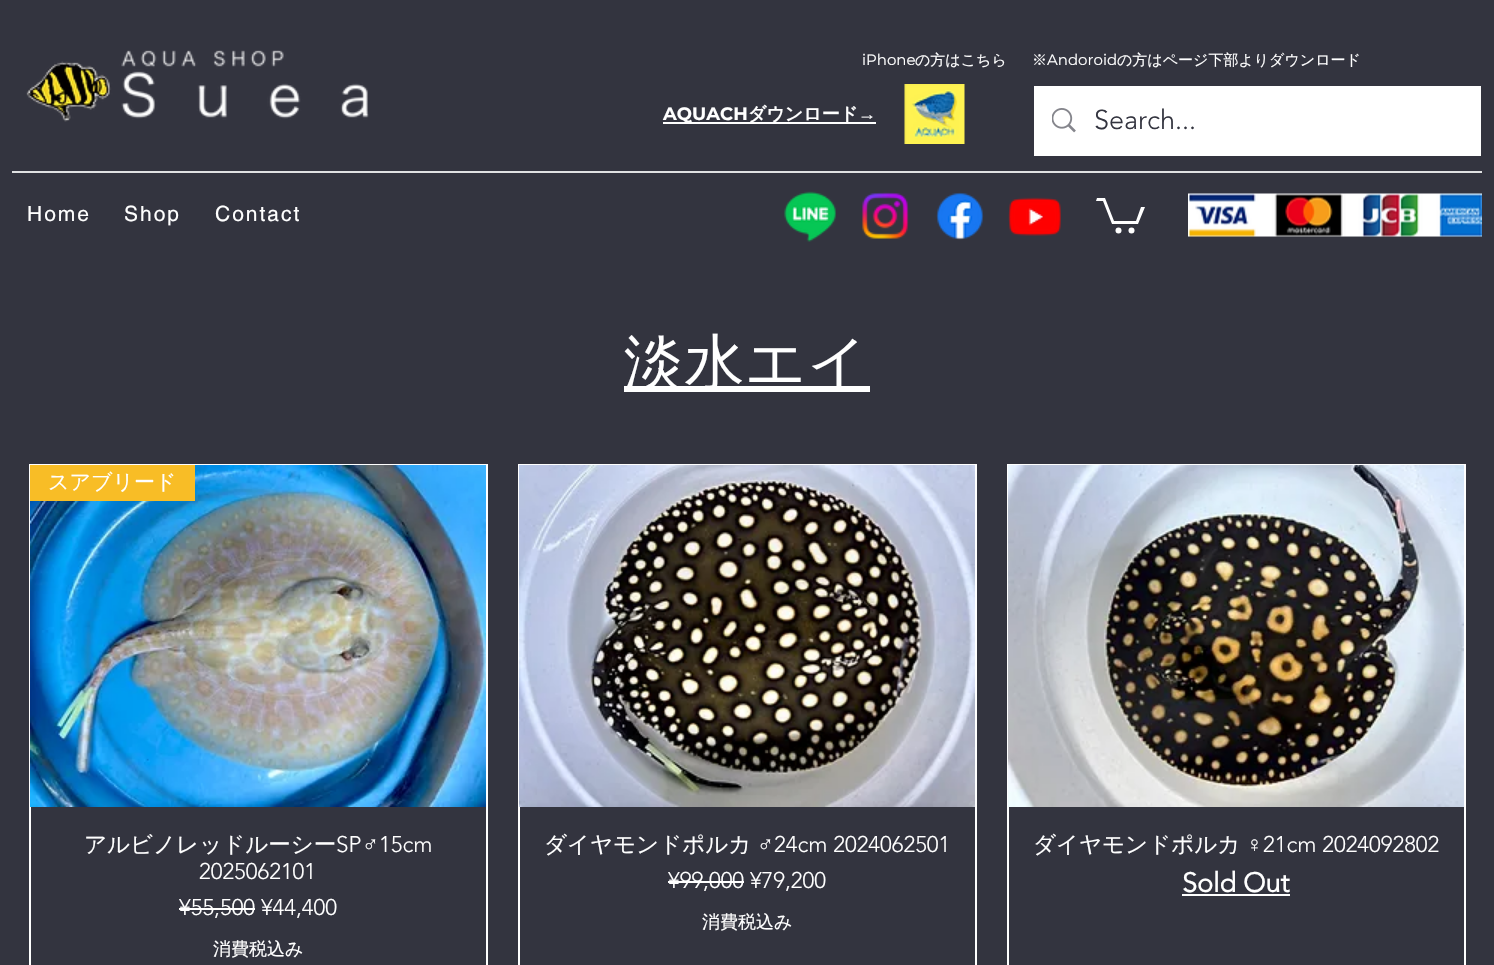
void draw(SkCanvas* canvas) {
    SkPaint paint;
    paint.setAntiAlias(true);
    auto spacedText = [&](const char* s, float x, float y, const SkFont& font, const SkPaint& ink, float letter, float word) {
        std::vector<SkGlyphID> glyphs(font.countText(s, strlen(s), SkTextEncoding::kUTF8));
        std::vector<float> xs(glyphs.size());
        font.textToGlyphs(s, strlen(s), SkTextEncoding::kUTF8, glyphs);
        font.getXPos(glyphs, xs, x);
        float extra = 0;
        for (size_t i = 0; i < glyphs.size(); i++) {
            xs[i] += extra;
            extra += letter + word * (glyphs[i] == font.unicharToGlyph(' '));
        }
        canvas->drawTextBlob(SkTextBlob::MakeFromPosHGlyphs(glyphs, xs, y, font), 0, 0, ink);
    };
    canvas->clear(0xFF33343F);
    canvas->drawImageRect(SkImages::DeferredFromEncodedData(SkData::MakeFromFileName("img1.png")), SkRect::MakeXYWH(26, 50, 343, 72), SkSamplingOptions());
    SkFont font1(fontMgr->matchFamilyStyle("Montserrat", SkFontStyle::Normal()), 15);
    font1.setSubpixel(true);
    paint.setColor(0xFFFFFFFF);
    canvas->drawString("iPhone", 862, 65, font1, paint);
    SkFont font2(fontMgr->matchFamilyStyle("WenQuanYi Zen Hei", SkFontStyle(500, SkFontStyle::kNormal_Width, SkFontStyle::kUpright_Slant)), 15);
    font2.setSubpixel(true);
    canvas->drawString("の方はこちら", 915, 65, font2, paint);
    canvas->drawString("※", 1032, 65, font2, paint);
    canvas->drawString("Andoroid", 1047, 65, font1, paint);
    canvas->drawString("の方はページ下部よりダウンロード", 1117, 65, font2, paint);
    canvas->drawRect(SkRect::MakeXYWH(663, 122, 213, 2), paint);
    SkFont font3(fontMgr->matchFamilyStyle("Montserrat", SkFontStyle::Bold()), 18);
    font3.setSubpixel(true);
    canvas->drawString("AQUACH", 663, 120, font3, paint);
    SkFont font4(fontMgr->matchFamilyStyle("WenQuanYi Zen Hei", SkFontStyle::Bold()), 18);
    font4.setSubpixel(true);
    canvas->drawString("ダウンロード", 748, 120, font4, paint);
    SkFont font5(fontMgr->matchFamilyStyle("Liberation Sans", SkFontStyle::Bold()), 18);
    font5.setSubpixel(true);
    canvas->drawString("→", 858, 120, font5, paint);
    canvas->drawImageRect(SkImages::DeferredFromEncodedData(SkData::MakeFromFileName("img2.png")), SkRect::MakeXYWH(904, 84, 61, 60), SkSamplingOptions());
    canvas->drawRect(SkRect::MakeXYWH(1034, 86, 447, 70), paint);
    canvas->drawImageRect(SkImages::DeferredFromEncodedData(SkData::MakeFromFileName("img3.png")), SkRect::MakeXYWH(1052, 108, 24, 25), SkSamplingOptions());
    SkFont font6(fontMgr->matchFamilyStyle("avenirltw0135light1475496", SkFontStyle(300, SkFontStyle::kNormal_Width, SkFontStyle::kUpright_Slant)), 27);
    font6.setSubpixel(true);
    paint.setColor(0xFF33343F);
    canvas->drawString("Search...", 1094, 129, font6, paint);
    paint.setColor(0xFFE0E1E2);
    canvas->drawRect(SkRect::MakeXYWH(12, 171, 1470, 2), paint);
    SkFont font7(fontMgr->matchFamilyStyle("helvetica", SkFontStyle::Normal()), 21);
    font7.setSubpixel(true);
    paint.setColor(0xFFFFFFFF);
    spacedText("Home", 27, 221, font7, paint, 2, 0);
    spacedText("Shop", 124, 221, font7, paint, 2, 0);
    spacedText("Contact", 215, 221, font7, paint, 2, 0);
    canvas->drawImageRect(SkImages::DeferredFromEncodedData(SkData::MakeFromFileName("img4.png")), SkRect::MakeXYWH(784, 191, 52, 51), SkSamplingOptions());
    canvas->drawImageRect(SkImages::DeferredFromEncodedData(SkData::MakeFromFileName("img5.png")), SkRect::MakeXYWH(862, 192, 47, 47), SkSamplingOptions());
    canvas->drawImageRect(SkImages::DeferredFromEncodedData(SkData::MakeFromFileName("img6.png")), SkRect::MakeXYWH(936, 192, 48, 48), SkSamplingOptions());
    canvas->drawImageRect(SkImages::DeferredFromEncodedData(SkData::MakeFromFileName("img7.png")), SkRect::MakeXYWH(1008, 197, 53, 39), SkSamplingOptions());
    canvas->drawPath(SkPathBuilder().moveTo(1145, 207).lineTo(1138, 224).lineTo(1112, 224).lineTo(1103, 201).lineTo(1096, 201).lineTo(1097, 198).lineTo(1105, 198).lineTo(1114, 221).lineTo(1136, 221).lineTo(1141, 207).detach(), paint);
    canvas->drawCircle(1131.5f, 230.5f, 3, paint);
    canvas->drawCircle(1118.5f, 230.5f, 3, paint);
    canvas->drawImageRect(SkImages::DeferredFromEncodedData(SkData::MakeFromFileName("img8.png")), SkRect::MakeXYWH(1188, 193, 294, 44), SkSamplingOptions());
    canvas->drawRect(SkRect::MakeXYWH(624, 386, 246, 6), paint);
    SkFont font8(fontMgr->matchFamilyStyle("WenQuanYi Zen Hei", SkFontStyle(500, SkFontStyle::kNormal_Width, SkFontStyle::kUpright_Slant)), 60);
    font8.setSubpixel(true);
    spacedText("淡水エイ", 624, 383, font8, paint, 0.5f, 0);
    paint.setStyle(SkPaint::kStroke_Style);
    paint.setStrokeWidth(2);
    canvas->drawRect(SkRect::MakeXYWH(30, 465, 457, 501), paint);
    canvas->drawImageRect(SkImages::DeferredFromEncodedData(SkData::MakeFromFileName("img9.png")), SkRect::MakeXYWH(30, 465, 456, 342), SkSamplingOptions());
    paint.setStyle(SkPaint::kFill_Style);
    paint.setColor(0xFFF8BD26);
    canvas->drawRect(SkRect::MakeXYWH(30, 465, 165, 36), paint);
    SkFont font9(fontMgr->matchFamilyStyle("WenQuanYi Zen Hei", SkFontStyle(500, SkFontStyle::kNormal_Width, SkFontStyle::kUpright_Slant)), 21);
    font9.setSubpixel(true);
    paint.setColor(0xFFFFFFFF);
    canvas->drawString("スアブリード", 48, 489, font9, paint);
    SkFont font10(fontMgr->matchFamilyStyle("WenQuanYi Zen Hei", SkFontStyle(500, SkFontStyle::kNormal_Width, SkFontStyle::kUpright_Slant)), 22.5f);
    font10.setSubpixel(true);
    canvas->drawString("アルビノレッドルーシー", 84, 852, font10, paint);
    SkFont font11(fontMgr->matchFamilyStyle("avenirltw0135light1475496", SkFontStyle(300, SkFontStyle::kNormal_Width, SkFontStyle::kUpright_Slant)), 22.5f);
    font11.setSubpixel(true);
    canvas->drawString("SP", 336, 852, font11, paint);
    SkFont font12(fontMgr->matchFamilyStyle("Liberation Sans", SkFontStyle::Normal()), 22.5f);
    font12.setSubpixel(true);
    canvas->drawString("♂", 362, 852, font12, paint);
    canvas->drawString("15cm", 379, 852, font11, paint);
    canvas->drawString("2025062101", 199, 879, font11, paint);
    canvas->drawString("¥55,500 ¥44,400", 179, 915, font11, paint);
    canvas->drawRect(SkRect::MakeXYWH(179, 908, 76, 2), paint);
    SkFont font13(fontMgr->matchFamilyStyle("WenQuanYi Zen Hei", SkFontStyle(500, SkFontStyle::kNormal_Width, SkFontStyle::kUpright_Slant)), 18);
    font13.setSubpixel(true);
    canvas->drawString("消費税込み", 213, 955, font13, paint);
    paint.setStyle(SkPaint::kStroke_Style);
    canvas->drawRect(SkRect::MakeXYWH(519, 465, 457, 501), paint);
    canvas->drawImageRect(SkImages::DeferredFromEncodedData(SkData::MakeFromFileName("img10.png")), SkRect::MakeXYWH(519, 465, 456, 342), SkSamplingOptions());
    paint.setStyle(SkPaint::kFill_Style);
    canvas->drawString("ダイヤモンドポルカ", 544, 852, font10, paint);
    canvas->drawString("♂", 757, 852, font12, paint);
    canvas->drawString("24cm 2024062501", 774, 852, font11, paint);
    canvas->drawString("¥99,000 ¥79,200", 668, 888, font11, paint);
    canvas->drawRect(SkRect::MakeXYWH(668, 881, 76, 2), paint);
    canvas->drawString("消費税込み", 702, 928, font13, paint);
    paint.setStyle(SkPaint::kStroke_Style);
    canvas->drawRect(SkRect::MakeXYWH(1008, 465, 457, 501), paint);
    canvas->drawImageRect(SkImages::DeferredFromEncodedData(SkData::MakeFromFileName("img11.png")), SkRect::MakeXYWH(1008, 465, 456, 342), SkSamplingOptions());
    paint.setStyle(SkPaint::kFill_Style);
    canvas->drawString("ダイヤモンドポルカ", 1033, 852, font10, paint);
    canvas->drawString("♀", 1246, 852, font12, paint);
    canvas->drawString("21cm 2024092802", 1263, 852, font11, paint);
    SkFont font14(fontMgr->matchFamilyStyle("avenirltw0135light1475496", SkFontStyle::Bold()), 27);
    font14.setSubpixel(true);
    canvas->drawString("Sold Out", 1182, 892, font14, paint);
    canvas->drawRect(SkRect::MakeXYWH(1182, 894, 108, 2), paint);
}
